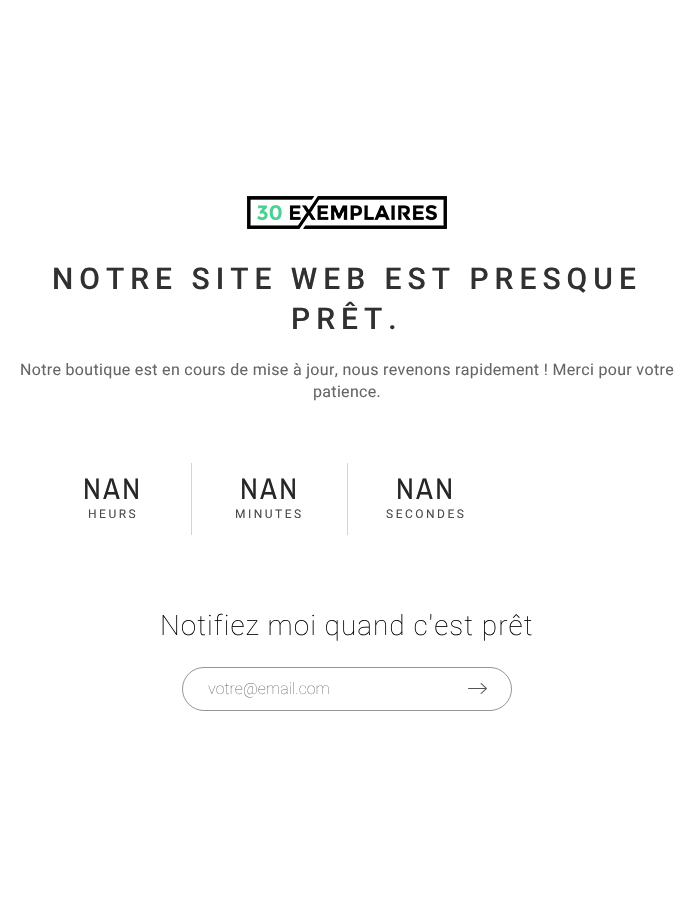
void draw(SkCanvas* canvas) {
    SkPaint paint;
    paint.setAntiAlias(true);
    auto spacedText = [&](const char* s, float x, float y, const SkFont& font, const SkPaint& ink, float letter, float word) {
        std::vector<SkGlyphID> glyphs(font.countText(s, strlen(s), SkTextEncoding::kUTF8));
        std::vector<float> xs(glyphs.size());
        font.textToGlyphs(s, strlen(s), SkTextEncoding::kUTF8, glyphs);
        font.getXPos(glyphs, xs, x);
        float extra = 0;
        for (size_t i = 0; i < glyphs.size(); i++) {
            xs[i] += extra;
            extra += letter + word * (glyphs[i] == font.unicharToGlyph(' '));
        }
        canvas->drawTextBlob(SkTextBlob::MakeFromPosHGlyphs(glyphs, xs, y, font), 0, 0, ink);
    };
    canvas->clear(0xFFFFFFFF);
    canvas->drawImageRect(SkImages::DeferredFromEncodedData(SkData::MakeFromFileName("img1.png")), SkRect::MakeXYWH(247, 196, 200, 33), SkSamplingOptions());
    SkFont font1(fontMgr->matchFamilyStyle("Roboto", SkFontStyle(500, SkFontStyle::kNormal_Width, SkFontStyle::kUpright_Slant)), 30);
    font1.setSubpixel(true);
    paint.setColor(0xFF313131);
    spacedText("NOTRE SITE WEB EST PRESQUE", 52, 289, font1, paint, 6, 0);
    spacedText("PRÊT.", 291, 329, font1, paint, 6, 0);
    SkFont font2(fontMgr->matchFamilyStyle("Roboto", SkFontStyle::Normal()), 16);
    font2.setSubpixel(true);
    paint.setColor(0xFF666666);
    spacedText("Notre boutique est en cours de mise à jour, nous revenons rapidement ! Merci pour votre", 20, 375, font2, paint, 0.32f, 0);
    spacedText("patience.", 313, 397, font2, paint, 0.32f, 0);
    SkFont font3(fontMgr->matchFamilyStyle("Archivo Narrow", SkFontStyle::Normal()), 30);
    font3.setSubpixel(true);
    paint.setColor(0xFF272727);
    spacedText("NAN", 83, 499, font3, paint, 2.5f, 0);
    SkFont font4(fontMgr->matchFamilyStyle("Roboto", SkFontStyle::Normal()), 12);
    font4.setSubpixel(true);
    paint.setColor(0xFF4C4C4C);
    spacedText("HEURS", 88, 518, font4, paint, 2.5f, 0);
    paint.setColor(0xFFD4D4D4);
    canvas->drawRect(SkRect::MakeXYWH(191, 463, 1, 72), paint);
    paint.setColor(0xFF272727);
    spacedText("NAN", 240, 499, font3, paint, 2.5f, 0);
    paint.setColor(0xFF4C4C4C);
    spacedText("MINUTES", 235, 518, font4, paint, 2.5f, 0);
    paint.setColor(0xFFD4D4D4);
    canvas->drawRect(SkRect::MakeXYWH(347, 463, 1, 72), paint);
    paint.setColor(0xFF272727);
    spacedText("NAN", 396, 499, font3, paint, 2.5f, 0);
    paint.setColor(0xFF4C4C4C);
    spacedText("SECONDES", 386, 518, font4, paint, 2.5f, 0);
    SkFont font5(fontMgr->matchFamilyStyle("Roboto", SkFontStyle(100, SkFontStyle::kNormal_Width, SkFontStyle::kUpright_Slant)), 28);
    font5.setSubpixel(true);
    paint.setColor(0xFF000000);
    spacedText("Notifiez moi quand c'est prêt", 160, 635, font5, paint, 1, 0);
    paint.setStyle(SkPaint::kStroke_Style);
    paint.setStrokeWidth(1);
    paint.setColor(0xFF959595);
    canvas->drawRoundRect(SkRect::MakeXYWH(182.5f, 667.5f, 329, 43), 21.5f, 21.5f, paint);
    SkFont font6(fontMgr->matchFamilyStyle("Roboto", SkFontStyle(100, SkFontStyle::kNormal_Width, SkFontStyle::kUpright_Slant)), 16);
    font6.setSubpixel(true);
    paint.setStyle(SkPaint::kFill_Style);
    paint.setColor(0xFF757575);
    canvas->drawString("votre@email.com", 208, 694, font6, paint);
    canvas->drawImageRect(SkImages::DeferredFromEncodedData(SkData::MakeFromFileName("img2.png")), SkRect::MakeXYWH(468, 683, 19, 11), SkSamplingOptions());
}
